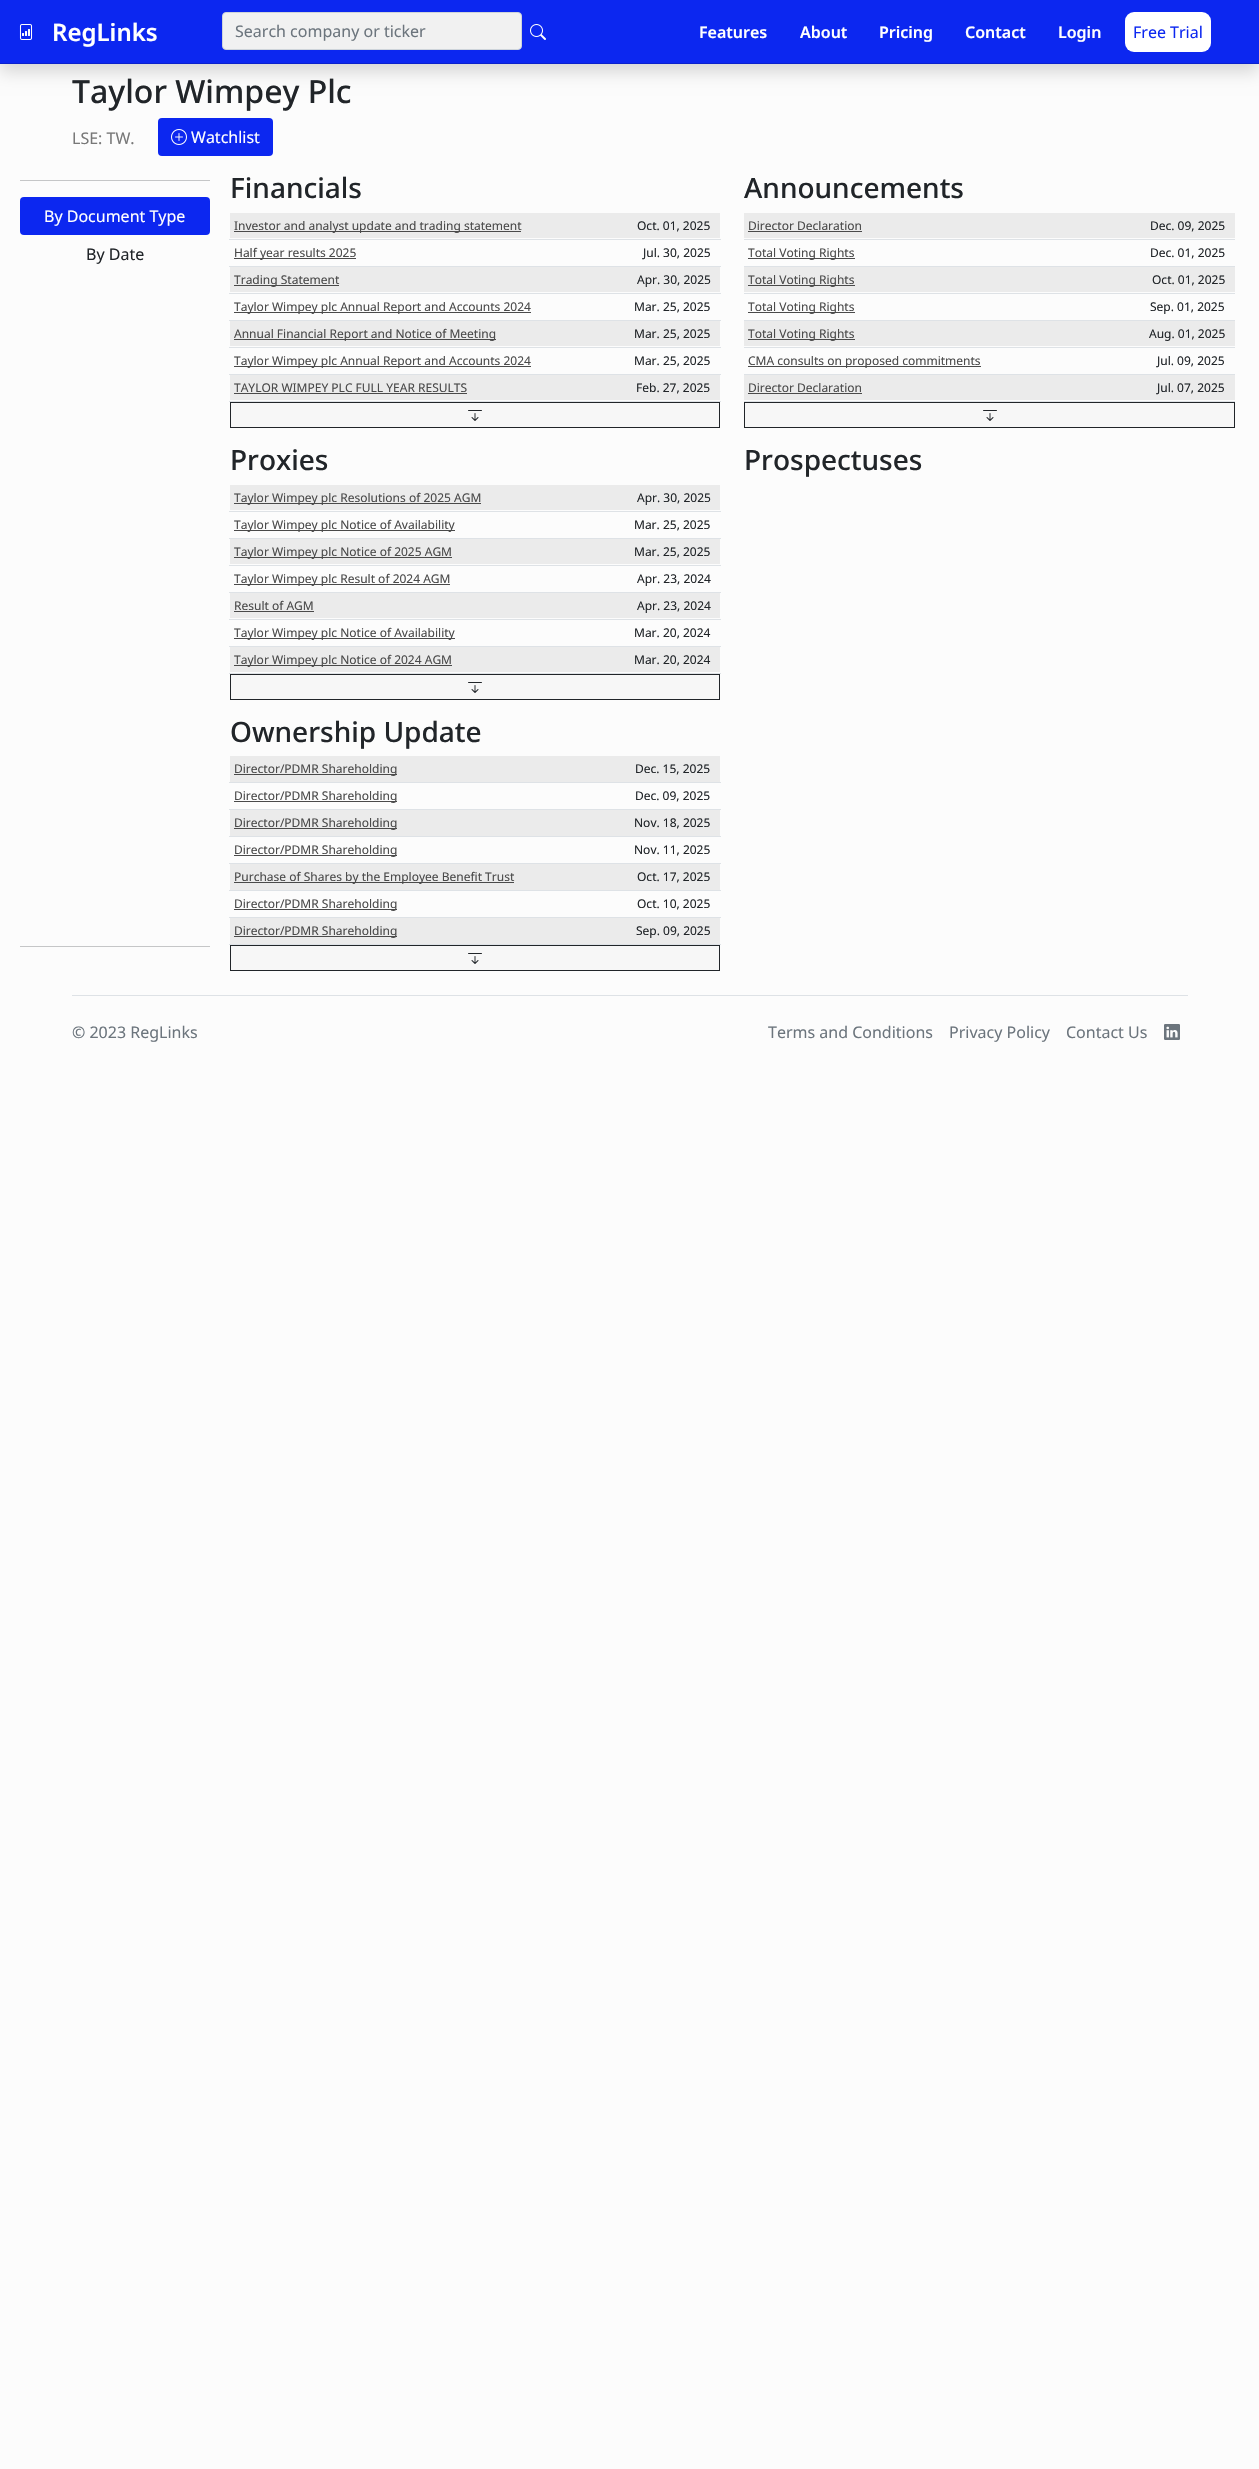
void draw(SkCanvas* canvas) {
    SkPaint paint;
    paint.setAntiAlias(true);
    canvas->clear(0xFFFCFCFC);
    paint.setColor(0x26000000);
    paint.setMaskFilter(SkMaskFilter::MakeBlur(kNormal_SkBlurStyle, 8));
    canvas->drawRect(SkRect::MakeXYWH(0, 8, 1259, 64), paint);
    paint.setMaskFilter(nullptr);
    paint.setColor(0xFF0C27F0);
    canvas->drawRect(SkRect::MakeXYWH(0, 0, 1259, 63), paint);
    paint.setColor(0xFF0A21CC);
    canvas->drawRect(SkRect::MakeXYWH(0, 63, 1259, 1), paint);
    canvas->drawImageRect(SkImages::DeferredFromEncodedData(SkData::MakeFromFileName("img1.png")), SkRect::MakeXYWH(19, 24, 14, 16), SkSamplingOptions());
    SkFont font1(fontMgr->matchFamilyStyle("Noto Sans", SkFontStyle(600, SkFontStyle::kNormal_Width, SkFontStyle::kUpright_Slant)), 24);
    font1.setSubpixel(true);
    paint.setColor(0xFFFFFFFF);
    canvas->drawString("RegLinks", 52, 41, font1, paint);
    paint.setColor(0xFFF1F1F1);
    canvas->drawRoundRect(SkRect::MakeXYWH(222.5f, 12.5f, 299, 37), 3.5f, 3.5f, paint);
    paint.setStyle(SkPaint::kStroke_Style);
    paint.setStrokeWidth(1);
    paint.setColor(0xFFCED4DA);
    canvas->drawRoundRect(SkRect::MakeXYWH(222.5f, 12.5f, 299, 37), 3.5f, 3.5f, paint);
    SkFont font2(fontMgr->matchFamilyStyle("Noto Sans", SkFontStyle::Normal()), 16);
    font2.setSubpixel(true);
    paint.setStyle(SkPaint::kFill_Style);
    paint.setColor(0xFF6C757D);
    canvas->drawString("Search company or ticker", 235, 37, font2, paint);
    canvas->drawImageRect(SkImages::DeferredFromEncodedData(SkData::MakeFromFileName("img2.png")), SkRect::MakeXYWH(530, 24, 16, 16), SkSamplingOptions());
    SkFont font3(fontMgr->matchFamilyStyle("Noto Sans", SkFontStyle(600, SkFontStyle::kNormal_Width, SkFontStyle::kUpright_Slant)), 16);
    font3.setSubpixel(true);
    paint.setColor(0xFFFFFFFF);
    canvas->drawString("Features", 699, 38, font3, paint);
    canvas->drawString("About", 800, 38, font3, paint);
    canvas->drawString("Pricing", 879, 38, font3, paint);
    canvas->drawString("Contact", 965, 38, font3, paint);
    canvas->drawString("Login", 1058, 38, font3, paint);
    canvas->drawRoundRect(SkRect::MakeXYWH(1125, 12, 86, 40), 9, 9, paint);
    paint.setColor(0xFF0C27F0);
    canvas->drawString("Free Trial", 1133, 38, font2, paint);
    SkFont font4(fontMgr->matchFamilyStyle("Noto Sans", SkFontStyle(500, SkFontStyle::kNormal_Width, SkFontStyle::kUpright_Slant)), 32);
    font4.setSubpixel(true);
    paint.setColor(0xFF212529);
    canvas->drawString("Taylor Wimpey Plc", 72, 103, font4, paint);
    paint.setColor(0xFF787878);
    canvas->drawString("LSE: TW.", 72, 144, font2, paint);
    paint.setColor(0xFF0C27F0);
    canvas->drawRoundRect(SkRect::MakeXYWH(158, 118, 115, 38), 4, 4, paint);
    canvas->drawImageRect(SkImages::DeferredFromEncodedData(SkData::MakeFromFileName("img3.png")), SkRect::MakeXYWH(171, 129, 16, 16), SkSamplingOptions());
    paint.setColor(0xFFFFFFFF);
    canvas->drawString("Watchlist", 191, 143, font2, paint);
    paint.setColor(0xFFC5C6C7);
    canvas->drawRect(SkRect::MakeXYWH(20, 180, 190, 1), paint);
    paint.setColor(0xFF0C27F0);
    canvas->drawRoundRect(SkRect::MakeXYWH(20, 197, 190, 38), 4, 4, paint);
    paint.setColor(0xFFFFFFFF);
    canvas->drawString("By Document Type", 44, 222, font2, paint);
    paint.setColor(0xFF212529);
    canvas->drawString("By Date", 86, 260, font2, paint);
    paint.setColor(0xFFC5C6C7);
    canvas->drawRect(SkRect::MakeXYWH(20, 946, 190, 1), paint);
    SkFont font5(fontMgr->matchFamilyStyle("Noto Sans", SkFontStyle(500, SkFontStyle::kNormal_Width, SkFontStyle::kUpright_Slant)), 28);
    font5.setSubpixel(true);
    paint.setColor(0xFF212529);
    canvas->drawString("Financials", 230, 198, font5, paint);
    paint.setColor(0xFFEBEBEB);
    canvas->drawRect(SkRect::MakeXYWH(230, 213, 490, 25), paint);
    paint.setColor(0xFF4A4A4A);
    canvas->drawRect(SkRect::MakeXYWH(234, 231, 287, 1), paint);
    SkFont font6(fontMgr->matchFamilyStyle("Noto Sans", SkFontStyle::Normal()), 12);
    font6.setSubpixel(true);
    canvas->drawString("Investor and analyst update and trading statement", 234, 230, font6, paint);
    paint.setColor(0xFFDEE2E6);
    canvas->drawRect(SkRect::MakeXYWH(229, 239, 492, 1), paint);
    paint.setColor(0xFF212529);
    canvas->drawString("Oct. 01, 2025", 637, 230, font6, paint);
    paint.setColor(0xFF4A4A4A);
    canvas->drawRect(SkRect::MakeXYWH(234, 258, 122, 1), paint);
    canvas->drawString("Half year results 2025", 234, 257, font6, paint);
    paint.setColor(0xFFDEE2E6);
    canvas->drawRect(SkRect::MakeXYWH(229, 266, 492, 1), paint);
    paint.setColor(0xFF212529);
    canvas->drawString("Jul. 30, 2025", 643, 257, font6, paint);
    paint.setColor(0xFFEBEBEB);
    canvas->drawRect(SkRect::MakeXYWH(230, 267, 490, 25), paint);
    paint.setColor(0xFF4A4A4A);
    canvas->drawRect(SkRect::MakeXYWH(234, 285, 105, 1), paint);
    canvas->drawString("Trading Statement", 234, 284, font6, paint);
    paint.setColor(0xFFDEE2E6);
    canvas->drawRect(SkRect::MakeXYWH(229, 293, 492, 1), paint);
    paint.setColor(0xFF212529);
    canvas->drawString("Apr. 30, 2025", 637, 284, font6, paint);
    paint.setColor(0xFF4A4A4A);
    canvas->drawRect(SkRect::MakeXYWH(234, 312, 297, 1), paint);
    canvas->drawString("Taylor Wimpey plc Annual Report and Accounts 2024", 234, 311, font6, paint);
    paint.setColor(0xFFDEE2E6);
    canvas->drawRect(SkRect::MakeXYWH(229, 320, 492, 1), paint);
    paint.setColor(0xFF212529);
    canvas->drawString("Mar. 25, 2025", 634, 311, font6, paint);
    paint.setColor(0xFFEBEBEB);
    canvas->drawRect(SkRect::MakeXYWH(230, 321, 490, 25), paint);
    paint.setColor(0xFF4A4A4A);
    canvas->drawRect(SkRect::MakeXYWH(234, 339, 262, 1), paint);
    canvas->drawString("Annual Financial Report and Notice of Meeting", 234, 338, font6, paint);
    paint.setColor(0xFFDEE2E6);
    canvas->drawRect(SkRect::MakeXYWH(229, 347, 492, 1), paint);
    paint.setColor(0xFF212529);
    canvas->drawString("Mar. 25, 2025", 634, 338, font6, paint);
    paint.setColor(0xFF4A4A4A);
    canvas->drawRect(SkRect::MakeXYWH(234, 366, 297, 1), paint);
    canvas->drawString("Taylor Wimpey plc Annual Report and Accounts 2024", 234, 365, font6, paint);
    paint.setColor(0xFFDEE2E6);
    canvas->drawRect(SkRect::MakeXYWH(229, 374, 492, 1), paint);
    paint.setColor(0xFF212529);
    canvas->drawString("Mar. 25, 2025", 634, 365, font6, paint);
    paint.setColor(0xFFEBEBEB);
    canvas->drawRect(SkRect::MakeXYWH(230, 375, 490, 25), paint);
    paint.setColor(0xFF4A4A4A);
    canvas->drawString("TAYLOR WIMPEY PLC FULL YEAR RESULTS", 234, 392, font6, paint);
    canvas->drawRect(SkRect::MakeXYWH(234, 393, 233, 1), paint);
    paint.setColor(0xFFDEE2E6);
    canvas->drawRect(SkRect::MakeXYWH(229, 401, 492, 1), paint);
    paint.setColor(0xFF212529);
    canvas->drawString("Feb. 27, 2025", 636, 392, font6, paint);
    paint.setColor(0xFFF7F7F7);
    canvas->drawRect(SkRect::MakeXYWH(230.5f, 402.5f, 489, 25), paint);
    paint.setStyle(SkPaint::kStroke_Style);
    paint.setColor(0xFF212529);
    canvas->drawRect(SkRect::MakeXYWH(230.5f, 402.5f, 489, 25), paint);
    canvas->drawImageRect(SkImages::DeferredFromEncodedData(SkData::MakeFromFileName("img4.png")), SkRect::MakeXYWH(468, 410, 14, 11), SkSamplingOptions());
    paint.setStyle(SkPaint::kFill_Style);
    canvas->drawString("Proxies", 230, 470, font5, paint);
    paint.setColor(0xFFEBEBEB);
    canvas->drawRect(SkRect::MakeXYWH(230, 485, 490, 25), paint);
    paint.setColor(0xFF4A4A4A);
    canvas->drawRect(SkRect::MakeXYWH(234, 503, 247, 1), paint);
    canvas->drawString("Taylor Wimpey plc Resolutions of 2025 AGM", 234, 502, font6, paint);
    paint.setColor(0xFFDEE2E6);
    canvas->drawRect(SkRect::MakeXYWH(229, 511, 492, 1), paint);
    paint.setColor(0xFF212529);
    canvas->drawString("Apr. 30, 2025", 637, 502, font6, paint);
    paint.setColor(0xFF4A4A4A);
    canvas->drawRect(SkRect::MakeXYWH(234, 530, 221, 1), paint);
    canvas->drawString("Taylor Wimpey plc Notice of Availability", 234, 529, font6, paint);
    paint.setColor(0xFFDEE2E6);
    canvas->drawRect(SkRect::MakeXYWH(229, 538, 492, 1), paint);
    paint.setColor(0xFF212529);
    canvas->drawString("Mar. 25, 2025", 634, 529, font6, paint);
    paint.setColor(0xFFEBEBEB);
    canvas->drawRect(SkRect::MakeXYWH(230, 539, 490, 25), paint);
    paint.setColor(0xFF4A4A4A);
    canvas->drawRect(SkRect::MakeXYWH(234, 557, 218, 1), paint);
    canvas->drawString("Taylor Wimpey plc Notice of 2025 AGM", 234, 556, font6, paint);
    paint.setColor(0xFFDEE2E6);
    canvas->drawRect(SkRect::MakeXYWH(229, 565, 492, 1), paint);
    paint.setColor(0xFF212529);
    canvas->drawString("Mar. 25, 2025", 634, 556, font6, paint);
    paint.setColor(0xFF4A4A4A);
    canvas->drawRect(SkRect::MakeXYWH(234, 584, 216, 1), paint);
    canvas->drawString("Taylor Wimpey plc Result of 2024 AGM", 234, 583, font6, paint);
    paint.setColor(0xFFDEE2E6);
    canvas->drawRect(SkRect::MakeXYWH(229, 592, 492, 1), paint);
    paint.setColor(0xFF212529);
    canvas->drawString("Apr. 23, 2024", 637, 583, font6, paint);
    paint.setColor(0xFFEBEBEB);
    canvas->drawRect(SkRect::MakeXYWH(230, 593, 490, 25), paint);
    paint.setColor(0xFF4A4A4A);
    canvas->drawString("Result of AGM", 234, 610, font6, paint);
    canvas->drawRect(SkRect::MakeXYWH(234, 611, 80, 1), paint);
    paint.setColor(0xFFDEE2E6);
    canvas->drawRect(SkRect::MakeXYWH(229, 619, 492, 1), paint);
    paint.setColor(0xFF212529);
    canvas->drawString("Apr. 23, 2024", 637, 610, font6, paint);
    paint.setColor(0xFF4A4A4A);
    canvas->drawRect(SkRect::MakeXYWH(234, 638, 221, 1), paint);
    canvas->drawString("Taylor Wimpey plc Notice of Availability", 234, 637, font6, paint);
    paint.setColor(0xFFDEE2E6);
    canvas->drawRect(SkRect::MakeXYWH(229, 646, 492, 1), paint);
    paint.setColor(0xFF212529);
    canvas->drawString("Mar. 20, 2024", 634, 637, font6, paint);
    paint.setColor(0xFFEBEBEB);
    canvas->drawRect(SkRect::MakeXYWH(230, 647, 490, 25), paint);
    paint.setColor(0xFF4A4A4A);
    canvas->drawRect(SkRect::MakeXYWH(234, 665, 218, 1), paint);
    canvas->drawString("Taylor Wimpey plc Notice of 2024 AGM", 234, 664, font6, paint);
    paint.setColor(0xFFDEE2E6);
    canvas->drawRect(SkRect::MakeXYWH(229, 673, 492, 1), paint);
    paint.setColor(0xFF212529);
    canvas->drawString("Mar. 20, 2024", 634, 664, font6, paint);
    paint.setColor(0xFFF7F7F7);
    canvas->drawRect(SkRect::MakeXYWH(230.5f, 674.5f, 489, 25), paint);
    paint.setStyle(SkPaint::kStroke_Style);
    paint.setColor(0xFF212529);
    canvas->drawRect(SkRect::MakeXYWH(230.5f, 674.5f, 489, 25), paint);
    canvas->drawImageRect(SkImages::DeferredFromEncodedData(SkData::MakeFromFileName("img4.png")), SkRect::MakeXYWH(468, 682, 14, 11), SkSamplingOptions());
    paint.setStyle(SkPaint::kFill_Style);
    canvas->drawString("Ownership Update", 230, 742, font5, paint);
    paint.setColor(0xFFEBEBEB);
    canvas->drawRect(SkRect::MakeXYWH(230, 756, 490, 26), paint);
    paint.setColor(0xFF4A4A4A);
    canvas->drawRect(SkRect::MakeXYWH(234, 774, 163, 1), paint);
    canvas->drawString("Director/PDMR Shareholding", 234, 773, font6, paint);
    paint.setColor(0xFFDEE2E6);
    canvas->drawRect(SkRect::MakeXYWH(229, 782, 492, 1), paint);
    paint.setColor(0xFF212529);
    canvas->drawString("Dec. 15, 2025", 635, 773, font6, paint);
    paint.setColor(0xFF4A4A4A);
    canvas->drawRect(SkRect::MakeXYWH(234, 801, 163, 1), paint);
    canvas->drawString("Director/PDMR Shareholding", 234, 800, font6, paint);
    paint.setColor(0xFFDEE2E6);
    canvas->drawRect(SkRect::MakeXYWH(229, 809, 492, 1), paint);
    paint.setColor(0xFF212529);
    canvas->drawString("Dec. 09, 2025", 635, 800, font6, paint);
    paint.setColor(0xFFEBEBEB);
    canvas->drawRect(SkRect::MakeXYWH(230, 810, 490, 26), paint);
    paint.setColor(0xFF4A4A4A);
    canvas->drawRect(SkRect::MakeXYWH(234, 828, 163, 1), paint);
    canvas->drawString("Director/PDMR Shareholding", 234, 827, font6, paint);
    paint.setColor(0xFFDEE2E6);
    canvas->drawRect(SkRect::MakeXYWH(229, 836, 492, 1), paint);
    paint.setColor(0xFF212529);
    canvas->drawString("Nov. 18, 2025", 634, 827, font6, paint);
    paint.setColor(0xFF4A4A4A);
    canvas->drawRect(SkRect::MakeXYWH(234, 855, 163, 1), paint);
    canvas->drawString("Director/PDMR Shareholding", 234, 854, font6, paint);
    paint.setColor(0xFFDEE2E6);
    canvas->drawRect(SkRect::MakeXYWH(229, 863, 492, 1), paint);
    paint.setColor(0xFF212529);
    canvas->drawString("Nov. 11, 2025", 634, 854, font6, paint);
    paint.setColor(0xFFEBEBEB);
    canvas->drawRect(SkRect::MakeXYWH(230, 864, 490, 26), paint);
    paint.setColor(0xFF4A4A4A);
    canvas->drawRect(SkRect::MakeXYWH(234, 882, 280, 1), paint);
    canvas->drawString("Purchase of Shares by the Employee Benefit Trust", 234, 881, font6, paint);
    paint.setColor(0xFFDEE2E6);
    canvas->drawRect(SkRect::MakeXYWH(229, 890, 492, 1), paint);
    paint.setColor(0xFF212529);
    canvas->drawString("Oct. 17, 2025", 637, 881, font6, paint);
    paint.setColor(0xFF4A4A4A);
    canvas->drawRect(SkRect::MakeXYWH(234, 909, 163, 1), paint);
    canvas->drawString("Director/PDMR Shareholding", 234, 908, font6, paint);
    paint.setColor(0xFFDEE2E6);
    canvas->drawRect(SkRect::MakeXYWH(229, 917, 492, 1), paint);
    paint.setColor(0xFF212529);
    canvas->drawString("Oct. 10, 2025", 637, 908, font6, paint);
    paint.setColor(0xFFEBEBEB);
    canvas->drawRect(SkRect::MakeXYWH(230, 918, 490, 26), paint);
    paint.setColor(0xFF4A4A4A);
    canvas->drawRect(SkRect::MakeXYWH(234, 936, 163, 1), paint);
    canvas->drawString("Director/PDMR Shareholding", 234, 935, font6, paint);
    paint.setColor(0xFFDEE2E6);
    canvas->drawRect(SkRect::MakeXYWH(229, 944, 492, 1), paint);
    paint.setColor(0xFF212529);
    canvas->drawString("Sep. 09, 2025", 636, 935, font6, paint);
    paint.setColor(0xFFF7F7F7);
    canvas->drawRect(SkRect::MakeXYWH(230.5f, 945.5f, 489, 25), paint);
    paint.setStyle(SkPaint::kStroke_Style);
    paint.setColor(0xFF212529);
    canvas->drawRect(SkRect::MakeXYWH(230.5f, 945.5f, 489, 25), paint);
    canvas->drawImageRect(SkImages::DeferredFromEncodedData(SkData::MakeFromFileName("img4.png")), SkRect::MakeXYWH(468, 953, 14, 11), SkSamplingOptions());
    paint.setStyle(SkPaint::kFill_Style);
    canvas->drawString("Announcements", 744, 198, font5, paint);
    paint.setColor(0xFFEBEBEB);
    canvas->drawRect(SkRect::MakeXYWH(744, 213, 491, 25), paint);
    paint.setColor(0xFF4A4A4A);
    canvas->drawString("Director Declaration", 748, 230, font6, paint);
    canvas->drawRect(SkRect::MakeXYWH(748, 231, 114, 1), paint);
    paint.setColor(0xFFDEE2E6);
    canvas->drawRect(SkRect::MakeXYWH(744, 239, 491, 1), paint);
    paint.setColor(0xFF212529);
    canvas->drawString("Dec. 09, 2025", 1150, 230, font6, paint);
    paint.setColor(0xFF4A4A4A);
    canvas->drawRect(SkRect::MakeXYWH(748, 258, 107, 1), paint);
    canvas->drawString("Total Voting Rights", 748, 257, font6, paint);
    paint.setColor(0xFFDEE2E6);
    canvas->drawRect(SkRect::MakeXYWH(744, 266, 491, 1), paint);
    paint.setColor(0xFF212529);
    canvas->drawString("Dec. 01, 2025", 1150, 257, font6, paint);
    paint.setColor(0xFFEBEBEB);
    canvas->drawRect(SkRect::MakeXYWH(744, 267, 491, 25), paint);
    paint.setColor(0xFF4A4A4A);
    canvas->drawRect(SkRect::MakeXYWH(748, 285, 107, 1), paint);
    canvas->drawString("Total Voting Rights", 748, 284, font6, paint);
    paint.setColor(0xFFDEE2E6);
    canvas->drawRect(SkRect::MakeXYWH(744, 293, 491, 1), paint);
    paint.setColor(0xFF212529);
    canvas->drawString("Oct. 01, 2025", 1152, 284, font6, paint);
    paint.setColor(0xFF4A4A4A);
    canvas->drawRect(SkRect::MakeXYWH(748, 312, 107, 1), paint);
    canvas->drawString("Total Voting Rights", 748, 311, font6, paint);
    paint.setColor(0xFFDEE2E6);
    canvas->drawRect(SkRect::MakeXYWH(744, 320, 491, 1), paint);
    paint.setColor(0xFF212529);
    canvas->drawString("Sep. 01, 2025", 1150, 311, font6, paint);
    paint.setColor(0xFFEBEBEB);
    canvas->drawRect(SkRect::MakeXYWH(744, 321, 491, 25), paint);
    paint.setColor(0xFF4A4A4A);
    canvas->drawRect(SkRect::MakeXYWH(748, 339, 107, 1), paint);
    canvas->drawString("Total Voting Rights", 748, 338, font6, paint);
    paint.setColor(0xFFDEE2E6);
    canvas->drawRect(SkRect::MakeXYWH(744, 347, 491, 1), paint);
    paint.setColor(0xFF212529);
    canvas->drawString("Aug. 01, 2025", 1149, 338, font6, paint);
    paint.setColor(0xFF4A4A4A);
    canvas->drawRect(SkRect::MakeXYWH(748, 366, 233, 1), paint);
    canvas->drawString("CMA consults on proposed commitments", 748, 365, font6, paint);
    paint.setColor(0xFFDEE2E6);
    canvas->drawRect(SkRect::MakeXYWH(744, 374, 491, 1), paint);
    paint.setColor(0xFF212529);
    canvas->drawString("Jul. 09, 2025", 1157, 365, font6, paint);
    paint.setColor(0xFFEBEBEB);
    canvas->drawRect(SkRect::MakeXYWH(744, 375, 491, 25), paint);
    paint.setColor(0xFF4A4A4A);
    canvas->drawString("Director Declaration", 748, 392, font6, paint);
    canvas->drawRect(SkRect::MakeXYWH(748, 393, 114, 1), paint);
    paint.setColor(0xFFDEE2E6);
    canvas->drawRect(SkRect::MakeXYWH(744, 401, 491, 1), paint);
    paint.setColor(0xFF212529);
    canvas->drawString("Jul. 07, 2025", 1157, 392, font6, paint);
    paint.setColor(0xFFF7F7F7);
    canvas->drawRect(SkRect::MakeXYWH(744.5f, 402.5f, 490, 25), paint);
    paint.setStyle(SkPaint::kStroke_Style);
    paint.setColor(0xFF212529);
    canvas->drawRect(SkRect::MakeXYWH(744.5f, 402.5f, 490, 25), paint);
    canvas->drawImageRect(SkImages::DeferredFromEncodedData(SkData::MakeFromFileName("img4.png")), SkRect::MakeXYWH(983, 410, 14, 11), SkSamplingOptions());
    paint.setStyle(SkPaint::kFill_Style);
    canvas->drawString("Prospectuses", 744, 470, font5, paint);
    paint.setColor(0xFFDEE2E6);
    canvas->drawRect(SkRect::MakeXYWH(72, 995, 1116, 1), paint);
    paint.setColor(0xFF6C757D);
    canvas->drawString("© 2023 RegLinks", 72, 1038, font2, paint);
    canvas->drawString("Terms and Conditions", 768, 1038, font2, paint);
    canvas->drawString("Privacy Policy", 949, 1038, font2, paint);
    canvas->drawString("Contact Us", 1066, 1038, font2, paint);
    canvas->drawImageRect(SkImages::DeferredFromEncodedData(SkData::MakeFromFileName("img5.png")), SkRect::MakeXYWH(1164, 1024, 16, 16), SkSamplingOptions());
}
